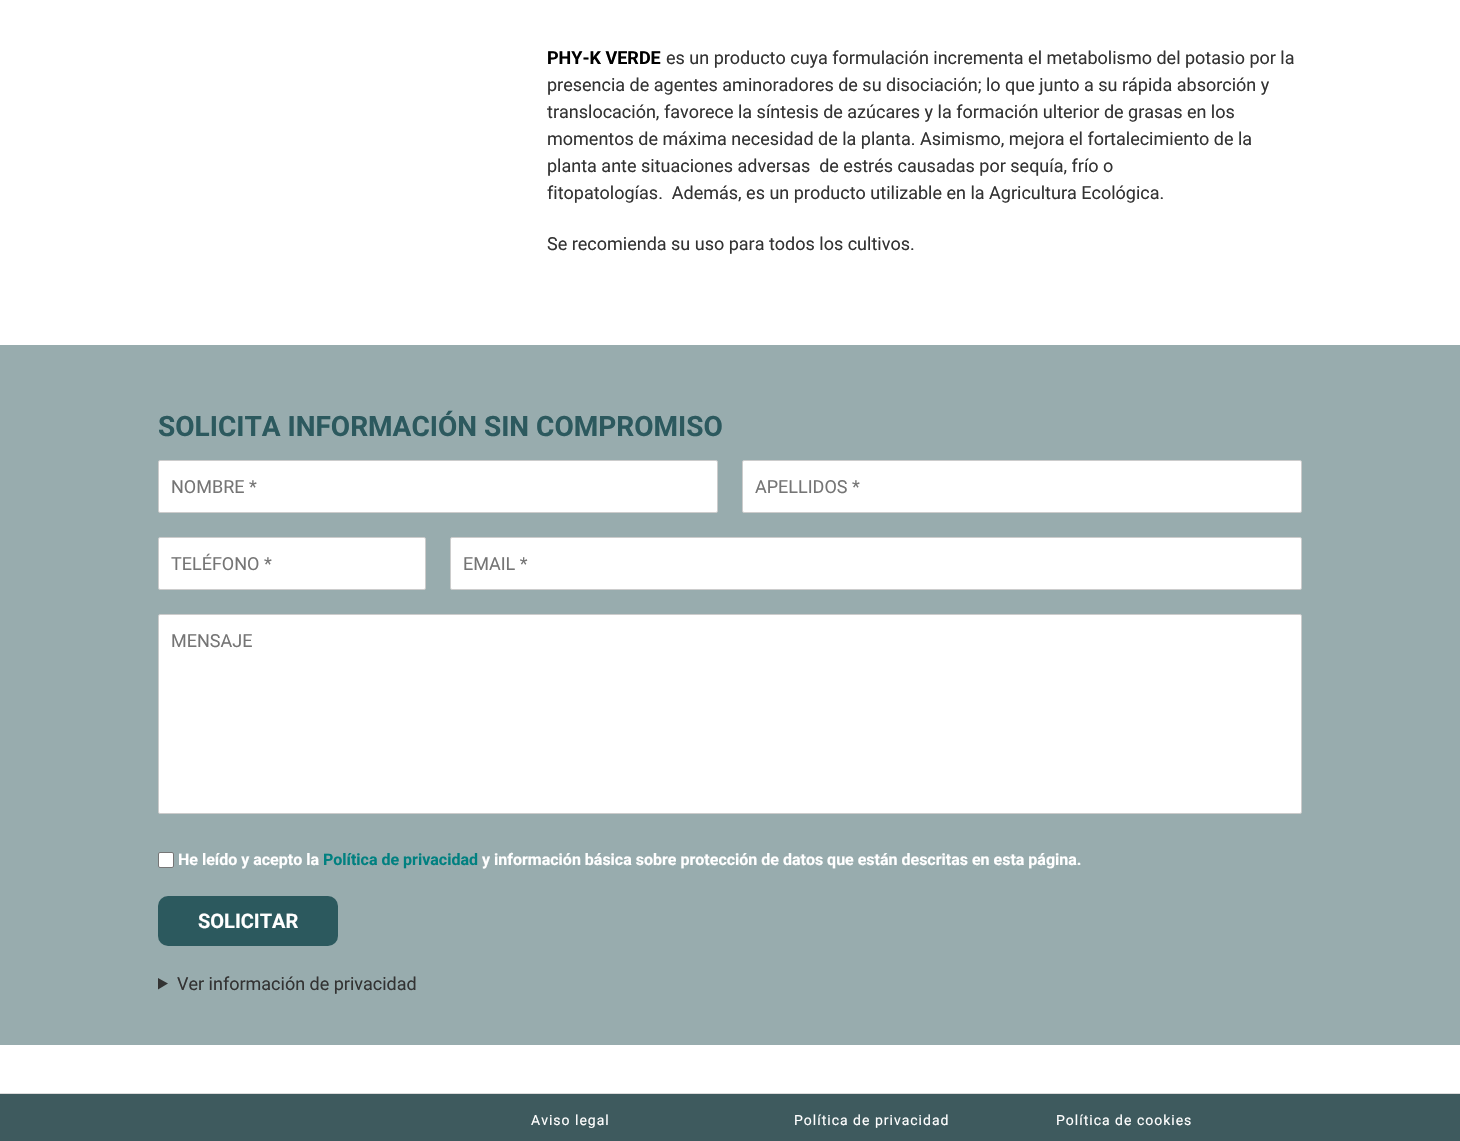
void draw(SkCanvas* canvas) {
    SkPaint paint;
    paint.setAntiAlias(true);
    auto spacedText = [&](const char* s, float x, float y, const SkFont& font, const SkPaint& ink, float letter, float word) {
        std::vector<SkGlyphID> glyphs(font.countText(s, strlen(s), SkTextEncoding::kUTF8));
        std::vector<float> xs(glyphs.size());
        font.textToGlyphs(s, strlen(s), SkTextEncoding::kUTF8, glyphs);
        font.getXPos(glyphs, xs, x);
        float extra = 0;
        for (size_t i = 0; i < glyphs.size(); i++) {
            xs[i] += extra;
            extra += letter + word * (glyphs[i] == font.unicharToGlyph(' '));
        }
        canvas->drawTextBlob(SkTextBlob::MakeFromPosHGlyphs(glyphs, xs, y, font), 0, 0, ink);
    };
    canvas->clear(0xFFFFFFFF);
    SkFont font1(fontMgr->matchFamilyStyle("Roboto", SkFontStyle::Bold()), 18);
    font1.setSubpixel(true);
    paint.setColor(0xFF000000);
    canvas->drawString("PHY-K VERDE", 547, 64, font1, paint);
    SkFont font2(fontMgr->matchFamilyStyle("Roboto", SkFontStyle::Normal()), 18);
    font2.setSubpixel(true);
    paint.setColor(0xFF333333);
    canvas->drawString("es un producto cuya formulación incrementa el metabolismo del potasio por la", 666, 64, font2, paint);
    canvas->drawString("presencia de agentes aminoradores de su disociación; lo que junto a su rápida absorción y", 547, 91, font2, paint);
    canvas->drawString("translocación, favorece la síntesis de azúcares y la formación ulterior de grasas en los", 547, 118, font2, paint);
    canvas->drawString("momentos de máxima necesidad de la planta. Asimismo, mejora el fortalecimiento de la", 547, 145, font2, paint);
    canvas->drawString("planta ante situaciones adversas  de estrés causadas por sequía, frío o", 547, 172, font2, paint);
    canvas->drawString("fitopatologías.  Además, es un producto utilizable en la Agricultura Ecológica.", 547, 199, font2, paint);
    canvas->drawString("Se recomienda su uso para todos los cultivos.", 547, 250, font2, paint);
    paint.setColor(0xFF98ACAE);
    canvas->drawRect(SkRect::MakeXYWH(0, 345, 1460, 700), paint);
    SkFont font3(fontMgr->matchFamilyStyle("Roboto", SkFontStyle::Bold()), 28);
    font3.setSubpixel(true);
    paint.setColor(0xFF2C595E);
    canvas->drawString("SOLICITA INFORMACIÓN SIN COMPROMISO", 158, 436, font3, paint);
    paint.setColor(0xFFFFFFFF);
    canvas->drawRoundRect(SkRect::MakeXYWH(158.5f, 460.5f, 559, 52), 1.5f, 1.5f, paint);
    paint.setStyle(SkPaint::kStroke_Style);
    paint.setStrokeWidth(1);
    paint.setColor(0xFFCCCCCC);
    canvas->drawRoundRect(SkRect::MakeXYWH(158.5f, 460.5f, 559, 52), 1.5f, 1.5f, paint);
    paint.setStyle(SkPaint::kFill_Style);
    paint.setColor(0xFF757575);
    canvas->drawString("NOMBRE *", 171, 493, font2, paint);
    paint.setColor(0xFFFFFFFF);
    canvas->drawRoundRect(SkRect::MakeXYWH(742.5f, 460.5f, 559, 52), 1.5f, 1.5f, paint);
    paint.setStyle(SkPaint::kStroke_Style);
    paint.setColor(0xFFCCCCCC);
    canvas->drawRoundRect(SkRect::MakeXYWH(742.5f, 460.5f, 559, 52), 1.5f, 1.5f, paint);
    paint.setStyle(SkPaint::kFill_Style);
    paint.setColor(0xFF757575);
    canvas->drawString("APELLIDOS *", 755, 493, font2, paint);
    paint.setColor(0xFFFFFFFF);
    canvas->drawRoundRect(SkRect::MakeXYWH(158.5f, 537.5f, 267, 52), 1.5f, 1.5f, paint);
    paint.setStyle(SkPaint::kStroke_Style);
    paint.setColor(0xFFCCCCCC);
    canvas->drawRoundRect(SkRect::MakeXYWH(158.5f, 537.5f, 267, 52), 1.5f, 1.5f, paint);
    paint.setStyle(SkPaint::kFill_Style);
    paint.setColor(0xFF757575);
    canvas->drawString("TELÉFONO *", 171, 570, font2, paint);
    paint.setColor(0xFFFFFFFF);
    canvas->drawRoundRect(SkRect::MakeXYWH(450.5f, 537.5f, 851, 52), 1.5f, 1.5f, paint);
    paint.setStyle(SkPaint::kStroke_Style);
    paint.setColor(0xFFCCCCCC);
    canvas->drawRoundRect(SkRect::MakeXYWH(450.5f, 537.5f, 851, 52), 1.5f, 1.5f, paint);
    paint.setStyle(SkPaint::kFill_Style);
    paint.setColor(0xFF757575);
    canvas->drawString("EMAIL *", 463, 570, font2, paint);
    paint.setColor(0xFFFFFFFF);
    canvas->drawRoundRect(SkRect::MakeXYWH(158.5f, 614.5f, 1143, 199), 1.5f, 1.5f, paint);
    paint.setStyle(SkPaint::kStroke_Style);
    paint.setColor(0xFFCCCCCC);
    canvas->drawRoundRect(SkRect::MakeXYWH(158.5f, 614.5f, 1143, 199), 1.5f, 1.5f, paint);
    paint.setStyle(SkPaint::kFill_Style);
    paint.setColor(0xFF757575);
    canvas->drawString("MENSAJE", 171, 647, font2, paint);
    paint.setColor(0xFFFFFFFF);
    canvas->drawRoundRect(SkRect::MakeXYWH(158.5f, 852.5f, 15, 15), 1.5f, 1.5f, paint);
    paint.setStyle(SkPaint::kStroke_Style);
    paint.setColor(0xFF767676);
    canvas->drawRoundRect(SkRect::MakeXYWH(158.5f, 852.5f, 15, 15), 1.5f, 1.5f, paint);
    SkFont font4(fontMgr->matchFamilyStyle("Roboto", SkFontStyle::Bold()), 16);
    font4.setSubpixel(true);
    paint.setStyle(SkPaint::kFill_Style);
    paint.setColor(0xFFFFFFFF);
    canvas->drawString("He leído y acepto la", 178, 865, font4, paint);
    paint.setColor(0xFF008080);
    canvas->drawString("Política de privacidad", 323, 865, font4, paint);
    paint.setColor(0xFFFFFFFF);
    canvas->drawString("y información básica sobre protección de datos que están descritas en esta página.", 482, 865, font4, paint);
    paint.setColor(0xFF2C595E);
    canvas->drawRoundRect(SkRect::MakeXYWH(158, 896, 180, 50), 10, 10, paint);
    SkFont font5(fontMgr->matchFamilyStyle("Roboto", SkFontStyle::Bold()), 20);
    font5.setSubpixel(true);
    paint.setColor(0xFFFFFFFF);
    canvas->drawString("SOLICITAR", 198, 928, font5, paint);
    paint.setColor(0xFF333333);
    canvas->drawPath(SkPathBuilder().moveTo(158, 978).lineTo(168, 983.5f).lineTo(158, 989.5f).close().detach(), paint);
    canvas->drawString("Ver información de privacidad", 177, 990, font2, paint);
    paint.setColor(0xFF3E5A5E);
    canvas->drawRect(SkRect::MakeXYWH(0, 1094, 1460, 47), paint);
    paint.setColor(0xFFDBDBDB);
    canvas->drawRect(SkRect::MakeXYWH(0, 1093, 1460, 1), paint);
    SkFont font6(fontMgr->matchFamilyStyle("Roboto", SkFontStyle::Normal()), 14);
    font6.setSubpixel(true);
    paint.setColor(0xFFFFFFFF);
    spacedText("Aviso legal", 531, 1125, font6, paint, 1, 0);
    spacedText("Política de privacidad", 794, 1125, font6, paint, 1, 0);
    spacedText("Política de cookies", 1056, 1125, font6, paint, 1, 0);
}
